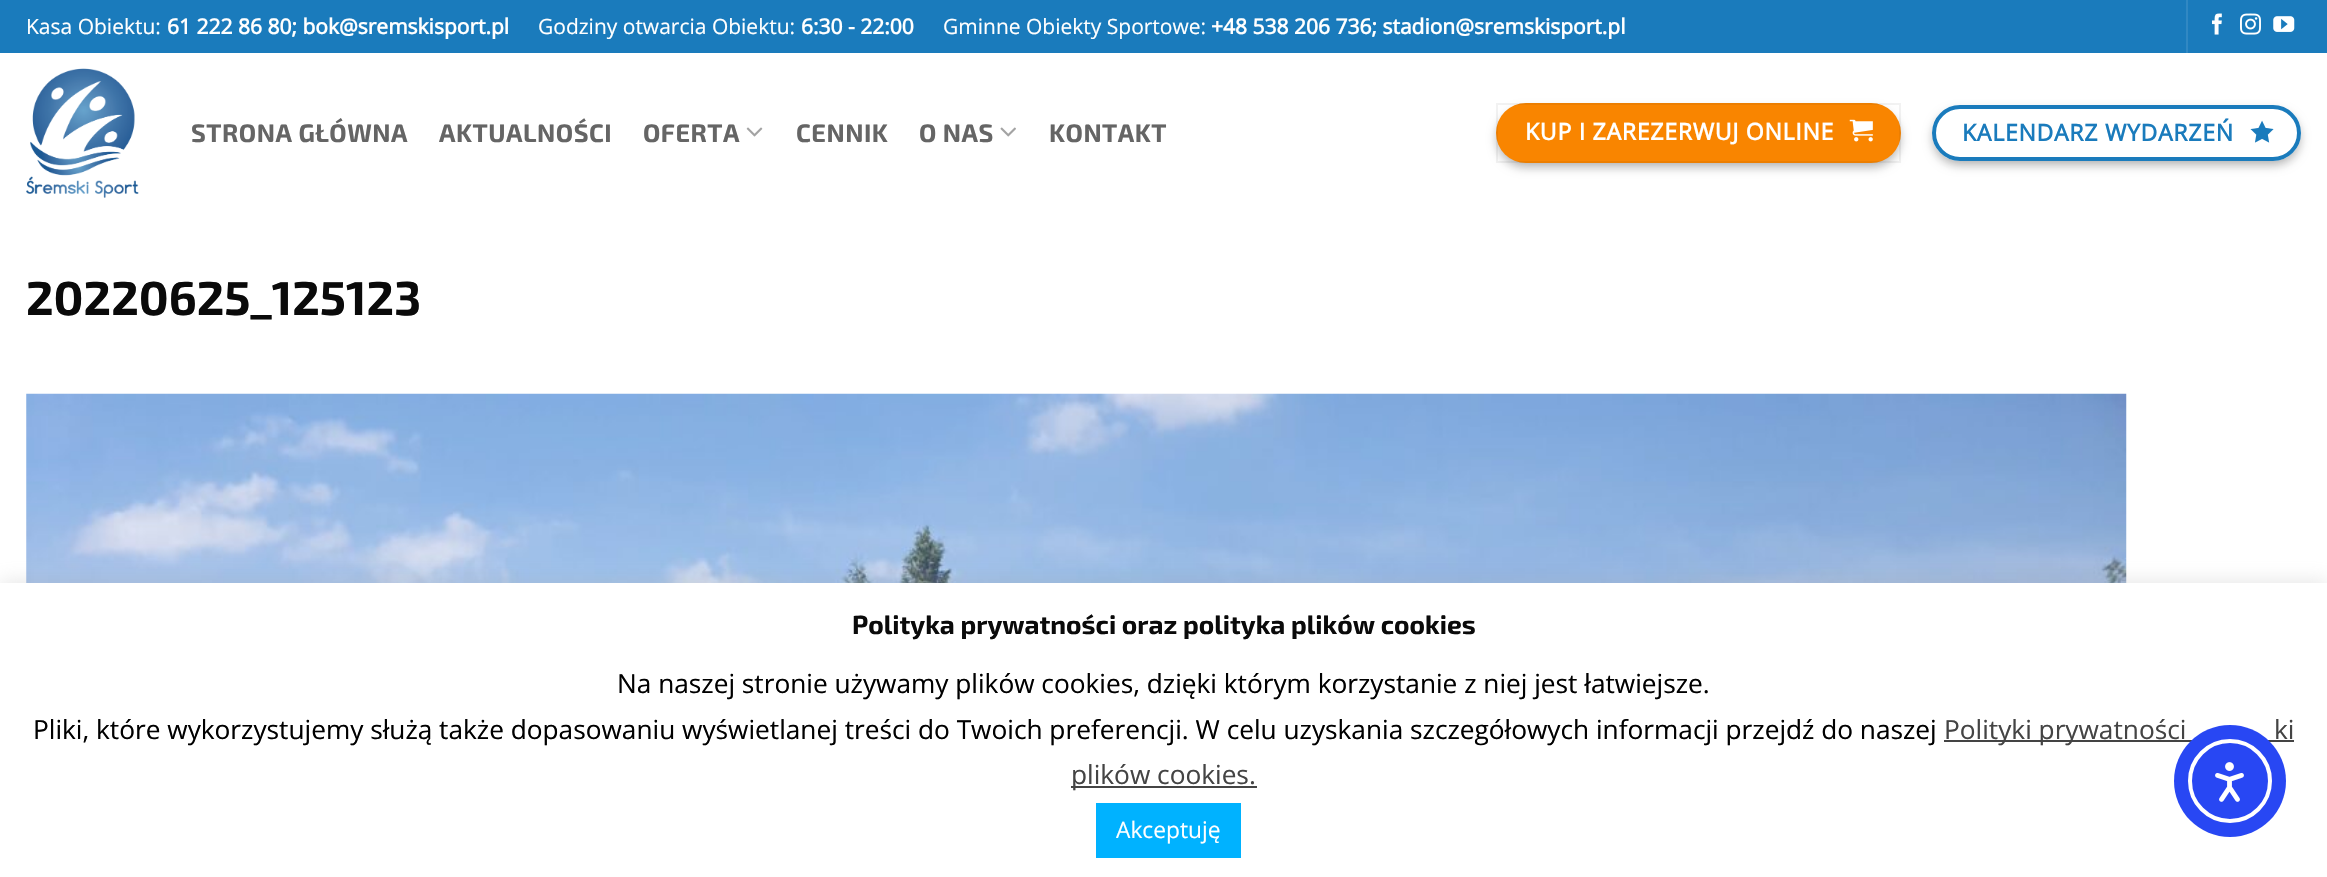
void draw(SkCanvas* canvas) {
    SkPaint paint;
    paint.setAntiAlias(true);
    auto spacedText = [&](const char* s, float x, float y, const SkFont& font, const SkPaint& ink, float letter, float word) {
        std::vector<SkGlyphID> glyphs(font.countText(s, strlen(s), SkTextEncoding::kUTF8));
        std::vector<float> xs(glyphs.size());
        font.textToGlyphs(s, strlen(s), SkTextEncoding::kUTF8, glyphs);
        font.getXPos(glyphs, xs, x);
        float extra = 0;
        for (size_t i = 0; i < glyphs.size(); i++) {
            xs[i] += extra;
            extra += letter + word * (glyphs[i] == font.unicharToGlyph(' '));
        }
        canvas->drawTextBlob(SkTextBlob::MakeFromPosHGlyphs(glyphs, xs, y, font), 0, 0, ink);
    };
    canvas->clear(0xFFFFFFFF);
    paint.setColor(0xFF1A7BBC);
    canvas->drawRect(SkRect::MakeXYWH(0, 0, 2327, 53), paint);
    SkFont font1(fontMgr->matchFamilyStyle("Open Sans", SkFontStyle::Normal()), 21);
    font1.setSubpixel(true);
    paint.setColor(0xFFFFFFFF);
    canvas->drawString("Kasa Obiektu:", 26, 34, font1, paint);
    SkFont font2(fontMgr->matchFamilyStyle("Open Sans", SkFontStyle::Bold()), 21);
    font2.setSubpixel(true);
    canvas->drawString("61 222 86 80; bok@sremskisport.pl", 167, 34, font2, paint);
    canvas->drawString("Godziny otwarcia Obiektu:", 538, 34, font1, paint);
    canvas->drawString("6:30 - 22:00", 801, 34, font2, paint);
    canvas->drawString("Gminne Obiekty Sportowe:", 943, 34, font1, paint);
    canvas->drawString("+48 538 206 736; stadion@sremskisport.pl", 1211, 34, font2, paint);
    paint.setColor(0xFF3188C3);
    canvas->drawRect(SkRect::MakeXYWH(2186, 0, 2, 53), paint);
    canvas->drawImageRect(SkImages::DeferredFromEncodedData(SkData::MakeFromFileName("img1.png")), SkRect::MakeXYWH(2212, 13, 10, 22), SkSamplingOptions());
    canvas->drawImageRect(SkImages::DeferredFromEncodedData(SkData::MakeFromFileName("img2.png")), SkRect::MakeXYWH(2240, 13, 21, 22), SkSamplingOptions());
    canvas->drawImageRect(SkImages::DeferredFromEncodedData(SkData::MakeFromFileName("img3.png")), SkRect::MakeXYWH(2273, 16, 22, 16), SkSamplingOptions());
    canvas->drawImageRect(SkImages::DeferredFromEncodedData(SkData::MakeFromFileName("img4.png")), SkRect::MakeXYWH(26, 68, 113, 130), SkSamplingOptions());
    SkFont font3(fontMgr->matchFamilyStyle("Exo 2", SkFontStyle::Bold()), 25.25f);
    font3.setSubpixel(true);
    paint.setColor(0xFF656565);
    spacedText("STRONA GŁÓWNA", 191, 142, font3, paint, 0.5f, 0);
    spacedText("AKTUALNOŚCI", 439, 142, font3, paint, 0.5f, 0);
    spacedText("OFERTA", 643, 142, font3, paint, 0.5f, 0);
    canvas->drawImageRect(SkImages::DeferredFromEncodedData(SkData::MakeFromFileName("img5.png")), SkRect::MakeXYWH(746, 127, 17, 10), SkSamplingOptions());
    spacedText("CENNIK", 796, 142, font3, paint, 0.5f, 0);
    spacedText("O NAS", 919, 142, font3, paint, 0.5f, 0);
    canvas->drawImageRect(SkImages::DeferredFromEncodedData(SkData::MakeFromFileName("img6.png")), SkRect::MakeXYWH(1000, 127, 16, 10), SkSamplingOptions());
    spacedText("KONTAKT", 1049, 142, font3, paint, 0.5f, 0);
    paint.setColor(0x3B000000);
    paint.setMaskFilter(SkMaskFilter::MakeBlur(kNormal_SkBlurStyle, 5));
    canvas->drawRoundRect(SkRect::MakeXYWH(1496, 109, 405, 59), 29.5f, 29.5f, paint);
    paint.setMaskFilter(nullptr);
    paint.setColor(0x29000000);
    paint.setMaskFilter(SkMaskFilter::MakeBlur(kNormal_SkBlurStyle, 5));
    canvas->drawRoundRect(SkRect::MakeXYWH(1503, 116, 391, 45), 22.5f, 22.5f, paint);
    paint.setMaskFilter(nullptr);
    paint.setColor(0xFFF98500);
    canvas->drawRoundRect(SkRect::MakeXYWH(1496, 103, 405, 60), 30, 30, paint);
    paint.setStyle(SkPaint::kStroke_Style);
    paint.setStrokeWidth(2);
    paint.setColor(0x0D000000);
    canvas->drawRect(SkRect::MakeXYWH(1497, 104, 403, 58), paint);
    SkFont font4(fontMgr->matchFamilyStyle("Open Sans", SkFontStyle::Bold()), 23.1f);
    font4.setSubpixel(true);
    paint.setStyle(SkPaint::kFill_Style);
    paint.setColor(0xFFFFFFFF);
    spacedText("KUP I ZAREZERWUJ ONLINE", 1525, 140, font4, paint, 0.7f, 0);
    canvas->drawImageRect(SkImages::DeferredFromEncodedData(SkData::MakeFromFileName("img7.png")), SkRect::MakeXYWH(1849, 119, 24, 23), SkSamplingOptions());
    canvas->save();
    canvas->clipPath(SkPathBuilder(SkPathFillType::kEvenOdd).moveTo(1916, 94).lineTo(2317, 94).lineTo(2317, 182).lineTo(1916, 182).close().moveTo(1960, 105).lineTo(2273, 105).cubicTo(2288.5f, 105, 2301, 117.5f, 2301, 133).cubicTo(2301, 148.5f, 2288.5f, 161, 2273, 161).lineTo(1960, 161).cubicTo(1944.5f, 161, 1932, 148.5f, 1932, 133).cubicTo(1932, 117.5f, 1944.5f, 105, 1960, 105).close().detach(), true);
    paint.setColor(0x3B000000);
    paint.setMaskFilter(SkMaskFilter::MakeBlur(kNormal_SkBlurStyle, 5));
    canvas->drawRoundRect(SkRect::MakeXYWH(1932, 110, 369, 56), 28, 28, paint);
    paint.setMaskFilter(nullptr);
    canvas->restore();
    canvas->save();
    canvas->clipPath(SkPathBuilder(SkPathFillType::kEvenOdd).moveTo(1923, 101).lineTo(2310, 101).lineTo(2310, 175).lineTo(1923, 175).close().moveTo(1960, 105).lineTo(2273, 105).cubicTo(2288.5f, 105, 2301, 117.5f, 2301, 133).cubicTo(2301, 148.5f, 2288.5f, 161, 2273, 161).lineTo(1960, 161).cubicTo(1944.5f, 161, 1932, 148.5f, 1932, 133).cubicTo(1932, 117.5f, 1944.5f, 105, 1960, 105).close().detach(), true);
    paint.setColor(0x29000000);
    paint.setMaskFilter(SkMaskFilter::MakeBlur(kNormal_SkBlurStyle, 5));
    canvas->drawRoundRect(SkRect::MakeXYWH(1939, 117, 355, 42), 21, 21, paint);
    paint.setMaskFilter(nullptr);
    canvas->restore();
    paint.setStyle(SkPaint::kStroke_Style);
    paint.setStrokeWidth(4);
    paint.setColor(0xFF1A7BBC);
    canvas->drawRoundRect(SkRect::MakeXYWH(1934, 107, 365, 52), 26, 26, paint);
    paint.setStyle(SkPaint::kFill_Style);
    spacedText("KALENDARZ WYDARZEŃ", 1962, 141, font4, paint, 0.7f, 0);
    canvas->drawImageRect(SkImages::DeferredFromEncodedData(SkData::MakeFromFileName("img8.png")), SkRect::MakeXYWH(2250, 120, 24, 23), SkSamplingOptions());
    SkFont font5(fontMgr->matchFamilyStyle("Exo 2", SkFontStyle::Bold()), 47.5f);
    font5.setSubpixel(true);
    paint.setColor(0xFF0A0A0A);
    canvas->drawString("20220625_125123", 26, 315, font5, paint);
    canvas->drawImageRect(SkImages::DeferredFromEncodedData(SkData::MakeFromFileName("img9.png")), SkRect::MakeXYWH(26, 393, 2101, 190), SkSamplingOptions());
    paint.setColor(0x4DACABAB);
    paint.setMaskFilter(SkMaskFilter::MakeBlur(kNormal_SkBlurStyle, 9));
    canvas->drawRect(SkRect::MakeXYWH(0, 581, 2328, 296), paint);
    paint.setMaskFilter(nullptr);
    paint.setColor(0xFFFFFFFF);
    canvas->drawRect(SkRect::MakeXYWH(0, 583, 2327, 294), paint);
    SkFont font6(fontMgr->matchFamilyStyle("Exo 2", SkFontStyle::Bold()), 26.25f);
    font6.setSubpixel(true);
    paint.setColor(0xFF0A0A0A);
    canvas->drawString("Polityka prywatności oraz polityka plików cookies", 852, 634, font6, paint);
    SkFont font7(fontMgr->matchFamilyStyle("Open Sans", SkFontStyle::Normal()), 26.25f);
    font7.setSubpixel(true);
    paint.setColor(0xFF000000);
    canvas->drawString("Na naszej stronie używamy plików cookies, dzięki którym korzystanie z niej jest łatwiejsze.", 617, 693, font7, paint);
    canvas->drawString("Pliki, które wykorzystujemy służą także dopasowaniu wyświetlanej treści do Twoich preferencji. W celu uzyskania szczegółowych informacji przejdź do naszej", 33, 739, font7, paint);
    paint.setColor(0xFF444444);
    canvas->drawRect(SkRect::MakeXYWH(1944, 740, 350, 2), paint);
    canvas->drawString("Polityki prywatności", 1944, 739, font7, paint);
    canvas->drawString("ki", 2274, 739, font7, paint);
    canvas->drawRect(SkRect::MakeXYWH(1071, 786, 186, 2), paint);
    canvas->drawString("plików cookies.", 1071, 784, font7, paint);
    paint.setColor(0xFF00B2FF);
    canvas->drawRect(SkRect::MakeXYWH(1096, 803, 145, 55), paint);
    SkFont font8(fontMgr->matchFamilyStyle("Open Sans", SkFontStyle::Normal()), 22.75f);
    font8.setSubpixel(true);
    paint.setColor(0xFFFFFFFF);
    canvas->drawString("Akceptuję", 1116, 838, font8, paint);
    paint.setColor(0xFF2847F3);
    canvas->drawCircle(2230, 781, 56, paint);
    paint.setStyle(SkPaint::kStroke_Style);
    paint.setColor(0xFFFFFFFF);
    canvas->drawCircle(2230, 781, 40, paint);
    canvas->drawImageRect(SkImages::DeferredFromEncodedData(SkData::MakeFromFileName("img10.png")), SkRect::MakeXYWH(2215, 762, 29, 40), SkSamplingOptions());
}
